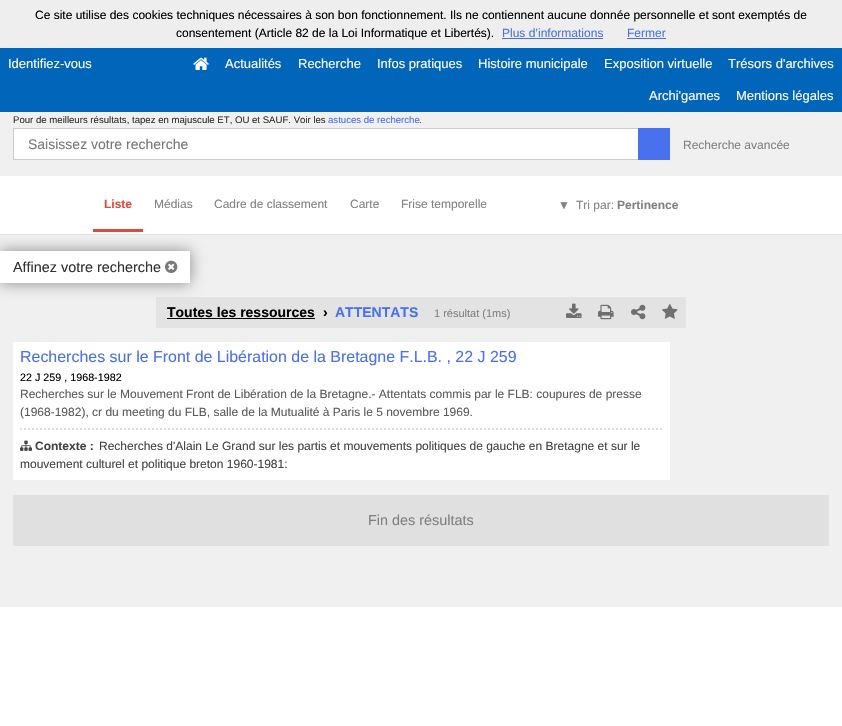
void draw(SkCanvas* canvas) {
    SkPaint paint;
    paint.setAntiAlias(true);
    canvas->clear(0xFFFFFFFF);
    paint.setColor(0xFFEEEEEE);
    canvas->drawRect(SkRect::MakeXYWH(0, 0, 842, 48), paint);
    SkFont font1(fontMgr->matchFamilyStyle("Liberation Sans", SkFontStyle::Normal()), 12);
    font1.setSubpixel(true);
    paint.setColor(0xFF000000);
    canvas->drawString("Ce site utilise des cookies techniques nécessaires à son bon fonctionnement. Ils ne contiennent aucune donnée personnelle et sont exemptés de", 35, 19, font1, paint);
    canvas->drawString("consentement (Article 82 de la Loi Informatique et Libertés).", 176, 37, font1, paint);
    paint.setColor(0xFF4A71ED);
    canvas->drawString("Plus d’informations", 502, 37, font1, paint);
    paint.setColor(0xFF4970EC);
    canvas->drawRect(SkRect::MakeXYWH(502, 38, 101, 1), paint);
    paint.setColor(0xFF4A71ED);
    canvas->drawString("Fermer", 627, 37, font1, paint);
    paint.setColor(0xFF4970EC);
    canvas->drawRect(SkRect::MakeXYWH(627, 38, 39, 1), paint);
    paint.setColor(0xFF0165BA);
    canvas->drawRect(SkRect::MakeXYWH(0, 48, 842, 64), paint);
    SkFont font2(fontMgr->matchFamilyStyle("Liberation Sans", SkFontStyle::Normal()), 13);
    font2.setSubpixel(true);
    paint.setColor(0xFFFCFCFC);
    canvas->drawString("Identifiez-vous", 8, 68, font2, paint);
    canvas->drawImageRect(SkImages::DeferredFromEncodedData(SkData::MakeFromFileName("img1.png")), SkRect::MakeXYWH(193, 57, 16, 13), SkSamplingOptions());
    canvas->drawString("Actualités", 225, 68, font2, paint);
    canvas->drawString("Recherche", 298, 68, font2, paint);
    canvas->drawString("Infos pratiques", 377, 68, font2, paint);
    canvas->drawString("Histoire municipale", 478, 68, font2, paint);
    canvas->drawString("Exposition virtuelle", 604, 68, font2, paint);
    canvas->drawString("Trésors d'archives", 728, 68, font2, paint);
    canvas->drawString("Archi'games", 649, 100, font2, paint);
    canvas->drawString("Mentions légales", 736, 100, font2, paint);
    paint.setColor(0xFFF0F0F0);
    canvas->drawRect(SkRect::MakeXYWH(0, 112, 842, 64), paint);
    SkFont font3(fontMgr->matchFamilyStyle("Liberation Sans", SkFontStyle::Normal()), 9.6f);
    font3.setSubpixel(true);
    paint.setColor(0xFF323232);
    canvas->drawString("Pour de meilleurs résultats, tapez en majuscule ET, OU et SAUF. Voir les", 13, 123, font3, paint);
    paint.setColor(0xFF4A71ED);
    canvas->drawString("astuces de recherche", 328, 123, font3, paint);
    paint.setColor(0xFF323232);
    canvas->drawString(".", 419, 123, font3, paint);
    paint.setColor(0xFFFFFFFF);
    canvas->drawRect(SkRect::MakeXYWH(14, 129, 624, 30), paint);
    paint.setStyle(SkPaint::kStroke_Style);
    paint.setStrokeWidth(1);
    paint.setColor(0xFFCCCCCC);
    canvas->drawRect(SkRect::MakeXYWH(13.5f, 128.5f, 656, 31), paint);
    SkFont font4(fontMgr->matchFamilyStyle("Liberation Sans", SkFontStyle::Normal()), 14);
    font4.setSubpixel(true);
    paint.setStyle(SkPaint::kFill_Style);
    paint.setColor(0xFF777777);
    canvas->drawString("Saisissez votre recherche", 28, 149, font4, paint);
    paint.setColor(0xFF4A71ED);
    canvas->drawRect(SkRect::MakeXYWH(638, 128, 32, 32), paint);
    paint.setColor(0xFF818181);
    canvas->drawString("Recherche avancée", 683, 149, font1, paint);
    paint.setColor(0xFFE3E3E3);
    canvas->drawRect(SkRect::MakeXYWH(0, 234, 842, 1), paint);
    paint.setColor(0xFFDD4B39);
    canvas->drawRect(SkRect::MakeXYWH(93, 229, 50, 3), paint);
    SkFont font5(fontMgr->matchFamilyStyle("Liberation Sans", SkFontStyle::Bold()), 12);
    font5.setSubpixel(true);
    canvas->drawString("Liste", 104, 208, font5, paint);
    paint.setColor(0xFF818181);
    canvas->drawString("Médias", 154, 208, font1, paint);
    canvas->drawString("Cadre de classement", 214, 208, font1, paint);
    canvas->drawString("Carte", 350, 208, font1, paint);
    canvas->drawString("Frise temporelle", 401, 208, font1, paint);
    canvas->drawString("▼", 558, 209, font1, paint);
    canvas->drawString("Tri par:", 576, 209, font1, paint);
    canvas->drawString("Pertinence", 617, 209, font5, paint);
    paint.setColor(0xFFF0F0F0);
    canvas->drawRect(SkRect::MakeXYWH(0, 235, 842, 372), paint);
    paint.setColor(0xFFE3E3E3);
    canvas->drawRect(SkRect::MakeXYWH(156, 297, 530, 31), paint);
    paint.setColor(0xFF888888);
    paint.setMaskFilter(SkMaskFilter::MakeBlur(kNormal_SkBlurStyle, 7.5f));
    canvas->drawRect(SkRect::MakeXYWH(0, 251, 190, 32), paint);
    paint.setMaskFilter(nullptr);
    paint.setColor(0xFFFFFFFF);
    canvas->drawRect(SkRect::MakeXYWH(0, 251, 190, 32), paint);
    SkFont font6(fontMgr->matchFamilyStyle("Liberation Sans", SkFontStyle::Normal()), 14.4f);
    font6.setSubpixel(true);
    paint.setColor(0xFF323232);
    canvas->drawString("Affinez votre recherche", 13, 272, font6, paint);
    canvas->drawImageRect(SkImages::DeferredFromEncodedData(SkData::MakeFromFileName("img2.png")), SkRect::MakeXYWH(165, 260, 13, 13), SkSamplingOptions());
    SkFont font7(fontMgr->matchFamilyStyle("Liberation Sans", SkFontStyle::Bold()), 14);
    font7.setSubpixel(true);
    paint.setColor(0xFF000000);
    canvas->drawString("Toutes les ressources", 167, 317, font7, paint);
    canvas->drawRect(SkRect::MakeXYWH(167, 318, 148, 1), paint);
    canvas->drawString("›", 323, 317, font7, paint);
    paint.setColor(0xFF4A71ED);
    canvas->drawString("ATTENTATS", 335, 317, font7, paint);
    SkFont font8(fontMgr->matchFamilyStyle("Liberation Sans", SkFontStyle::Normal()), 11);
    font8.setSubpixel(true);
    paint.setColor(0xFF818181);
    canvas->drawString("1 résultat (1ms)", 434, 317, font8, paint);
    canvas->drawImageRect(SkImages::DeferredFromEncodedData(SkData::MakeFromFileName("img3.png")), SkRect::MakeXYWH(566, 303, 16, 15), SkSamplingOptions());
    canvas->drawImageRect(SkImages::DeferredFromEncodedData(SkData::MakeFromFileName("img4.png")), SkRect::MakeXYWH(598, 304, 16, 16), SkSamplingOptions());
    canvas->drawImageRect(SkImages::DeferredFromEncodedData(SkData::MakeFromFileName("img5.png")), SkRect::MakeXYWH(631, 304, 15, 16), SkSamplingOptions());
    canvas->drawImageRect(SkImages::DeferredFromEncodedData(SkData::MakeFromFileName("img6.png")), SkRect::MakeXYWH(662, 304, 16, 15), SkSamplingOptions());
    paint.setColor(0xFFFFFFFF);
    canvas->drawRect(SkRect::MakeXYWH(13, 342, 657, 138), paint);
    SkFont font9(fontMgr->matchFamilyStyle("Liberation Sans", SkFontStyle::Normal()), 15.95f);
    font9.setSubpixel(true);
    paint.setColor(0xFF4A71ED);
    canvas->drawString("Recherches sur le Front de Libération de la Bretagne F.L.B. , 22 J 259", 20, 362, font9, paint);
    SkFont font10(fontMgr->matchFamilyStyle("Liberation Sans", SkFontStyle::Normal()), 10.75f);
    font10.setSubpixel(true);
    paint.setColor(0xFF000000);
    canvas->drawString("22 J 259 , 1968-1982", 20, 381, font10, paint);
    paint.setColor(0xFF5B5B5B);
    canvas->drawString("Recherches sur le Mouvement Front de Libération de la Bretagne.- Attentats commis par le FLB: coupures de presse", 20, 398, font1, paint);
    canvas->drawString("(1968-1982), cr du meeting du FLB, salle de la Mutualité à Paris le 5 novembre 1969.", 20, 416, font1, paint);
    paint.setStyle(SkPaint::kStroke_Style);
    paint.setStrokeWidth(2);
    paint.setColor(0xFFE0E0E0);
    paint.setPathEffect(SkDashPathEffect::Make({{2, 2}}, 0));
    canvas->drawPath(SkPathBuilder().moveTo(20, 429).lineTo(663, 429).detach(), paint);
    paint.setPathEffect(nullptr);
    paint.setStyle(SkPaint::kFill_Style);
    paint.setColor(0xFF434343);
    canvas->drawString("Recherches d'Alain Le Grand sur les partis et mouvements politiques de gauche en Bretagne et sur le", 99, 450, font1, paint);
    canvas->drawString("mouvement culturel et politique breton 1960-1981:", 20, 468, font1, paint);
    canvas->drawImageRect(SkImages::DeferredFromEncodedData(SkData::MakeFromFileName("img7.png")), SkRect::MakeXYWH(20, 440, 12, 11), SkSamplingOptions());
    canvas->drawString("Contexte :", 35, 450, font5, paint);
    paint.setColor(0xFFE0E0E0);
    canvas->drawRect(SkRect::MakeXYWH(13, 495, 816, 51), paint);
    paint.setColor(0xFF818181);
    canvas->drawString("Fin des résultats", 368, 525, font6, paint);
}
